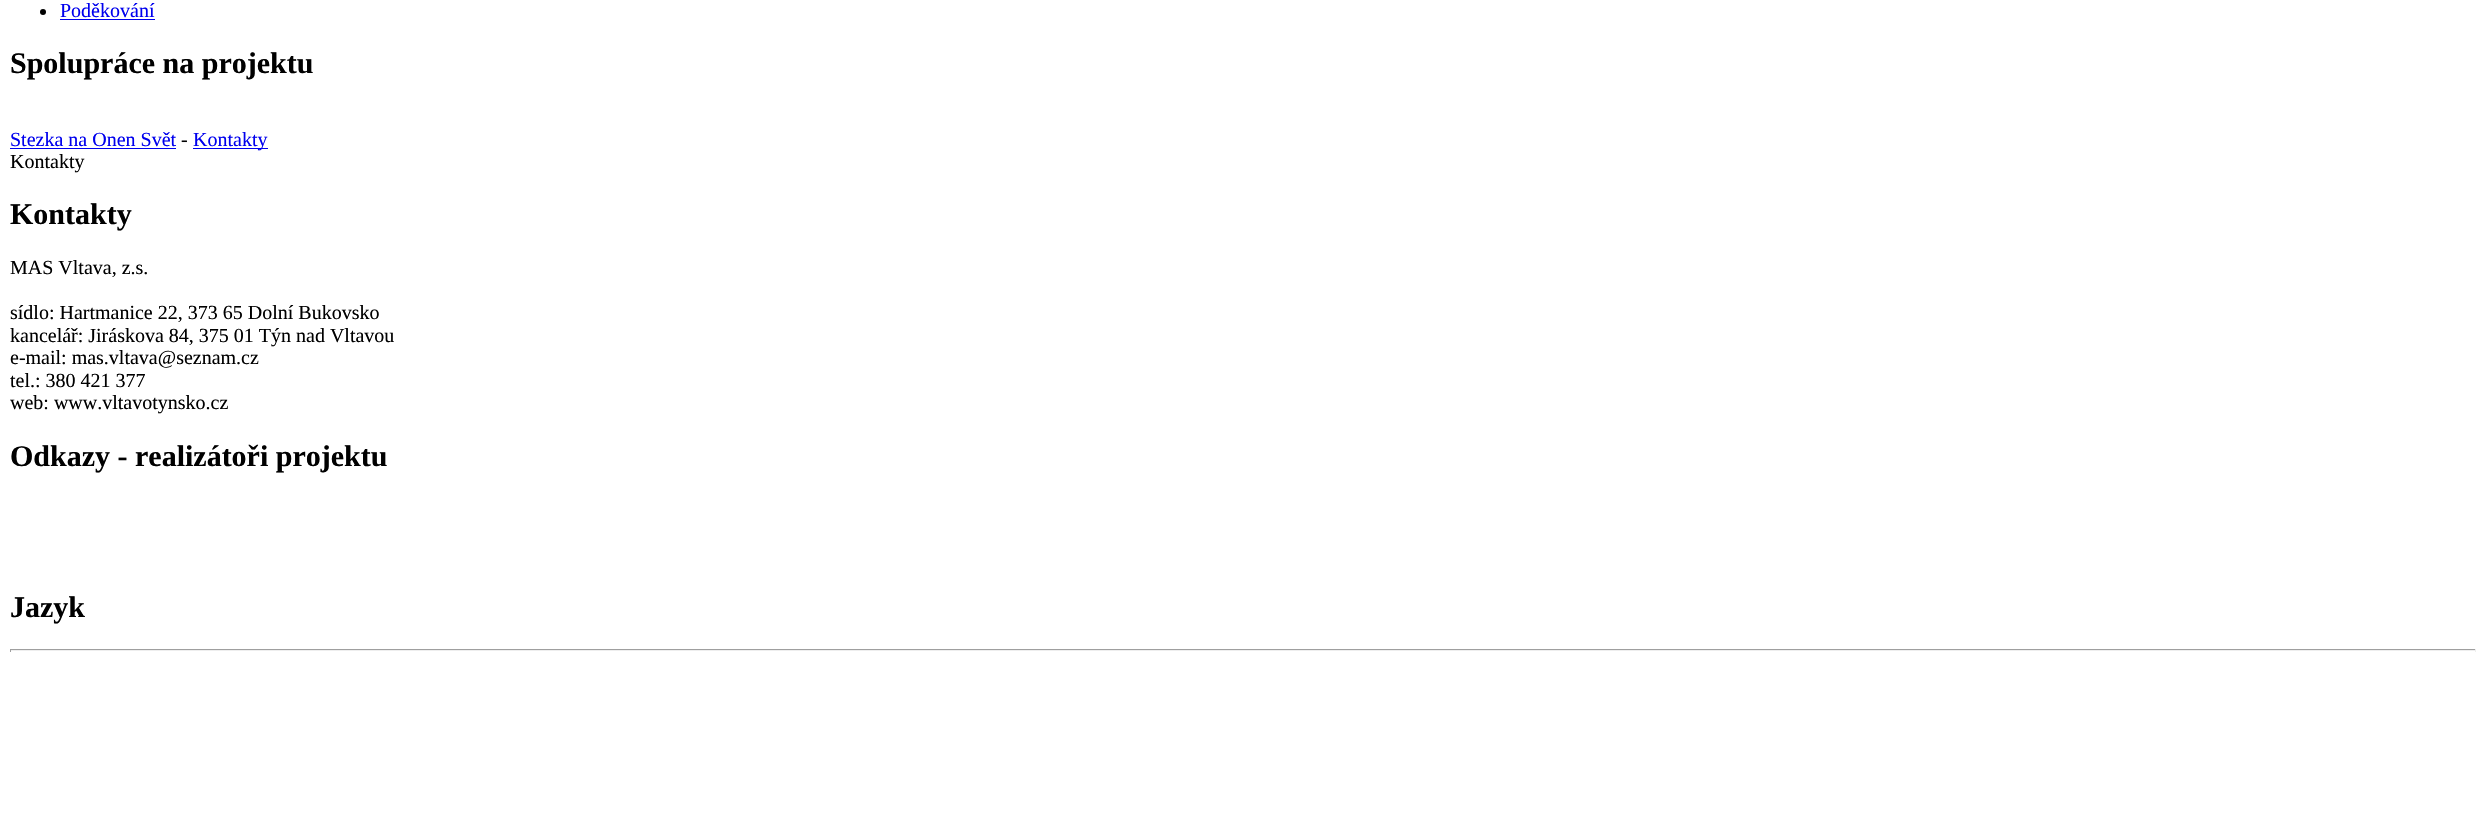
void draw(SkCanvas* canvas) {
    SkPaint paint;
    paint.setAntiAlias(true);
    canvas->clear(0xFFFFFFFF);
    paint.setColor(0xFF000000);
    canvas->drawCircle(43, 12, 3, paint);
    SkFont font1(fontMgr->matchFamilyStyle("Liberation Serif", SkFontStyle::Normal()), 20);
    font1.setSubpixel(true);
    paint.setColor(0xFF0000EE);
    canvas->drawString("Poděkování", 60, 17, font1, paint);
    canvas->drawRect(SkRect::MakeXYWH(60, 19, 95, 1), paint);
    SkFont font2(fontMgr->matchFamilyStyle("Liberation Serif", SkFontStyle::Bold()), 30);
    font2.setSubpixel(true);
    paint.setColor(0xFF000000);
    canvas->drawString("Spolupráce na projektu", 10, 73, font2, paint);
    paint.setColor(0xFF0000EE);
    canvas->drawString("Stezka na Onen Svět", 10, 146, font1, paint);
    canvas->drawRect(SkRect::MakeXYWH(10, 148, 166, 1), paint);
    paint.setColor(0xFF000000);
    canvas->drawString("-", 181, 146, font1, paint);
    paint.setColor(0xFF0000EE);
    canvas->drawRect(SkRect::MakeXYWH(193, 148, 75, 1), paint);
    canvas->drawString("Kontakty", 193, 146, font1, paint);
    paint.setColor(0xFF000000);
    canvas->drawString("Kontakty", 10, 168, font1, paint);
    canvas->drawString("Kontakty", 10, 224, font2, paint);
    canvas->drawString("MAS Vltava, z.s.", 10, 274, font1, paint);
    canvas->drawString("sídlo: Hartmanice 22, 373 65 Dolní Bukovsko", 10, 319, font1, paint);
    canvas->drawString("kancelář: Jiráskova 84, 375 01 Týn nad Vltavou", 10, 342, font1, paint);
    canvas->drawString("e-mail: mas.vltava@seznam.cz", 10, 364, font1, paint);
    canvas->drawString("tel.: 380 421 377", 10, 387, font1, paint);
    canvas->drawString("web: www.vltavotynsko.cz", 10, 409, font1, paint);
    canvas->drawString("Odkazy - realizátoři projektu", 10, 466, font2, paint);
    canvas->drawString("Jazyk", 10, 617, font2, paint);
    paint.setColor(0xFF9F9F9F);
    canvas->drawRect(SkRect::MakeXYWH(10, 649, 2466, 1), paint);
    paint.setColor(0xFFEEEEEE);
    canvas->drawRect(SkRect::MakeXYWH(2475, 649, 1, 3), paint);
    canvas->drawRect(SkRect::MakeXYWH(10, 650, 2466, 1), paint);
    paint.setColor(0xFF9F9F9F);
    canvas->drawRect(SkRect::MakeXYWH(10, 649, 1, 3), paint);
}
